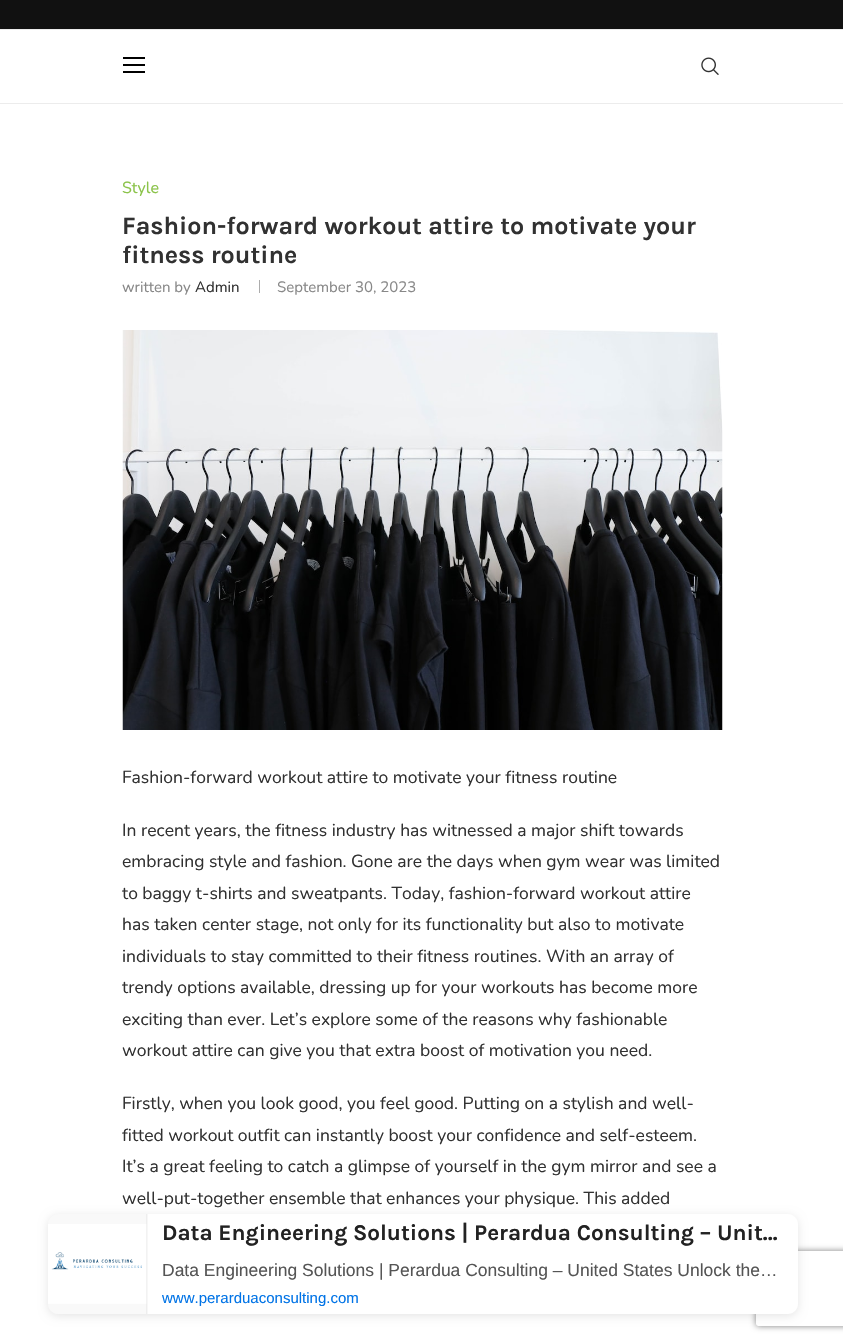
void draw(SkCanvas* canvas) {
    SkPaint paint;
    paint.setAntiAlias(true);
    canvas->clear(0xFFFFFFFF);
    paint.setColor(0xFF111111);
    canvas->drawRect(SkRect::MakeXYWH(0, 0, 843, 29), paint);
    paint.setColor(0xFFECECEC);
    canvas->drawRect(SkRect::MakeXYWH(0, 29, 843, 1), paint);
    canvas->drawRect(SkRect::MakeXYWH(0, 103, 843, 1), paint);
    paint.setColor(0xFF000000);
    canvas->drawRect(SkRect::MakeXYWH(123, 57, 22, 2), paint);
    canvas->drawRect(SkRect::MakeXYWH(123, 64, 22, 2), paint);
    canvas->drawRect(SkRect::MakeXYWH(123, 71, 22, 2), paint);
    canvas->drawImageRect(SkImages::DeferredFromEncodedData(SkData::MakeFromFileName("img1.png")), SkRect::MakeXYWH(701, 57, 18, 18), SkSamplingOptions());
    SkFont font1(fontMgr->matchFamilyStyle("Nunito", SkFontStyle::Normal()), 16);
    font1.setSubpixel(true);
    paint.setColor(0xFF8BC34A);
    canvas->drawString("Style", 122, 193, font1, paint);
    SkFont font2(fontMgr->matchFamilyStyle("Karla", SkFontStyle::Bold()), 25);
    font2.setSubpixel(true);
    paint.setColor(0xFF313131);
    canvas->drawString("Fashion-forward workout attire to motivate your", 122, 234, font2, paint);
    canvas->drawString("fitness routine", 122, 263, font2, paint);
    SkFont font3(fontMgr->matchFamilyStyle("Nunito", SkFontStyle::Normal()), 15);
    font3.setSubpixel(true);
    paint.setColor(0xFF888888);
    canvas->drawString("written by", 122, 292, font3, paint);
    paint.setColor(0xFF313131);
    canvas->drawString("Admin", 195, 292, font3, paint);
    paint.setColor(0xFFACACAC);
    canvas->drawRect(SkRect::MakeXYWH(259, 280, 1, 13), paint);
    paint.setColor(0xFF888888);
    canvas->drawString("September 30, 2023", 277, 292, font3, paint);
    canvas->drawImageRect(SkImages::DeferredFromEncodedData(SkData::MakeFromFileName("img2.png")), SkRect::MakeXYWH(122, 330, 601, 400), SkSamplingOptions());
    SkFont font4(fontMgr->matchFamilyStyle("Nunito", SkFontStyle::Normal()), 17.5f);
    font4.setSubpixel(true);
    paint.setColor(0xFF313131);
    canvas->drawString("Fashion-forward workout attire to motivate your fitness routine", 122, 783, font4, paint);
    canvas->drawString("In recent years, the fitness industry has witnessed a major shift towards", 122, 836, font4, paint);
    canvas->drawString("embracing style and fashion. Gone are the days when gym wear was limited", 122, 867, font4, paint);
    canvas->drawString("to baggy t-shirts and sweatpants. Today, fashion-forward workout attire", 122, 899, font4, paint);
    canvas->drawString("has taken center stage, not only for its functionality but also to motivate", 122, 930, font4, paint);
    canvas->drawString("individuals to stay committed to their fitness routines. With an array of", 122, 962, font4, paint);
    canvas->drawString("trendy options available, dressing up for your workouts has become more", 122, 993, font4, paint);
    canvas->drawString("exciting than ever. Let’s explore some of the reasons why fashionable", 122, 1025, font4, paint);
    canvas->drawString("workout attire can give you that extra boost of motivation you need.", 122, 1056, font4, paint);
    canvas->drawString("Firstly, when you look good, you feel good. Putting on a stylish and well-", 122, 1109, font4, paint);
    canvas->drawString("fitted workout outfit can instantly boost your confidence and self-esteem.", 122, 1141, font4, paint);
    canvas->drawString("It’s a great feeling to catch a glimpse of yourself in the gym mirror and see a", 122, 1172, font4, paint);
    canvas->drawString("well-put-together ensemble that enhances your physique. This added", 122, 1204, font4, paint);
    paint.setColor(0x1A000000);
    paint.setMaskFilter(SkMaskFilter::MakeBlur(kNormal_SkBlurStyle, 5));
    canvas->drawRoundRect(SkRect::MakeXYWH(48, 1216, 750, 100), 10, 10, paint);
    paint.setMaskFilter(nullptr);
    paint.setColor(0xFFF7F7F7);
    canvas->drawPath(SkPathBuilder().moveTo(58, 1214).lineTo(148, 1214).lineTo(148, 1314).lineTo(58, 1314).cubicTo(52.5f, 1314, 48, 1309.5f, 48, 1304).lineTo(48, 1224).cubicTo(48, 1218.5f, 52.5f, 1214, 58, 1214).close().detach(), paint);
    paint.setColor(0xFFEEEEEE);
    canvas->drawRect(SkRect::MakeXYWH(146, 1214, 1, 100), paint);
    paint.setColor(0xFFF9F9F9);
    canvas->drawPath(SkPathBuilder().moveTo(58, 1214).lineTo(146, 1214).lineTo(146, 1314).lineTo(58, 1314).cubicTo(52.5f, 1314, 48, 1309.5f, 48, 1304).lineTo(48, 1224).cubicTo(48, 1218.5f, 52.5f, 1214, 58, 1214).close().detach(), paint);
    canvas->drawImageRect(SkImages::DeferredFromEncodedData(SkData::MakeFromFileName("img3.png")), SkRect::MakeXYWH(48, 1224, 99, 80), SkSamplingOptions());
    canvas->save();
    canvas->clipPath(SkPathBuilder(SkPathFillType::kEvenOdd).moveTo(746, 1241).lineTo(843, 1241).lineTo(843, 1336).lineTo(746, 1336).close().moveTo(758.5f, 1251).lineTo(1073.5f, 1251).cubicTo(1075, 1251, 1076, 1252, 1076, 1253.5f).lineTo(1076, 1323.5f).cubicTo(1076, 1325, 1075, 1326, 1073.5f, 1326).lineTo(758.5f, 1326).cubicTo(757, 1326, 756, 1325, 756, 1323.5f).lineTo(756, 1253.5f).cubicTo(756, 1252, 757, 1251, 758.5f, 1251).close().detach(), true);
    paint.setColor(0xFF808080);
    paint.setMaskFilter(SkMaskFilter::MakeBlur(kNormal_SkBlurStyle, 3));
    canvas->drawRoundRect(SkRect::MakeXYWH(756, 1251, 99, 75), 2.5f, 2.5f, paint);
    paint.setMaskFilter(nullptr);
    canvas->restore();
    paint.setColor(0xFFFFFFFF);
    canvas->drawPath(SkPathBuilder().moveTo(148, 1214).lineTo(788, 1214).cubicTo(793.5f, 1214, 798, 1218.5f, 798, 1224).lineTo(798, 1304).cubicTo(798, 1309.5f, 793.5f, 1314, 788, 1314).lineTo(148, 1314).close().detach(), paint);
    SkFont font5(fontMgr->matchFamilyStyle("Karla", SkFontStyle::Bold()), 22.5f);
    font5.setSubpixel(true);
    paint.setColor(0xFF222222);
    canvas->drawString("Data Engineering Solutions | Perardua Consulting – Unit…", 162, 1240, font5, paint);
    SkFont font6(fontMgr->matchFamilyStyle("Liberation Sans", SkFontStyle::Normal()), 17.5f);
    font6.setSubpixel(true);
    paint.setColor(0xFF555555);
    canvas->drawString("Data Engineering Solutions | Perardua Consulting – United States Unlock the…", 162, 1276, font6, paint);
    SkFont font7(fontMgr->matchFamilyStyle("Liberation Sans", SkFontStyle::Normal()), 15);
    font7.setSubpixel(true);
    paint.setColor(0xFF0073E6);
    canvas->drawString("www.perarduaconsulting.com", 162, 1303, font7, paint);
}
